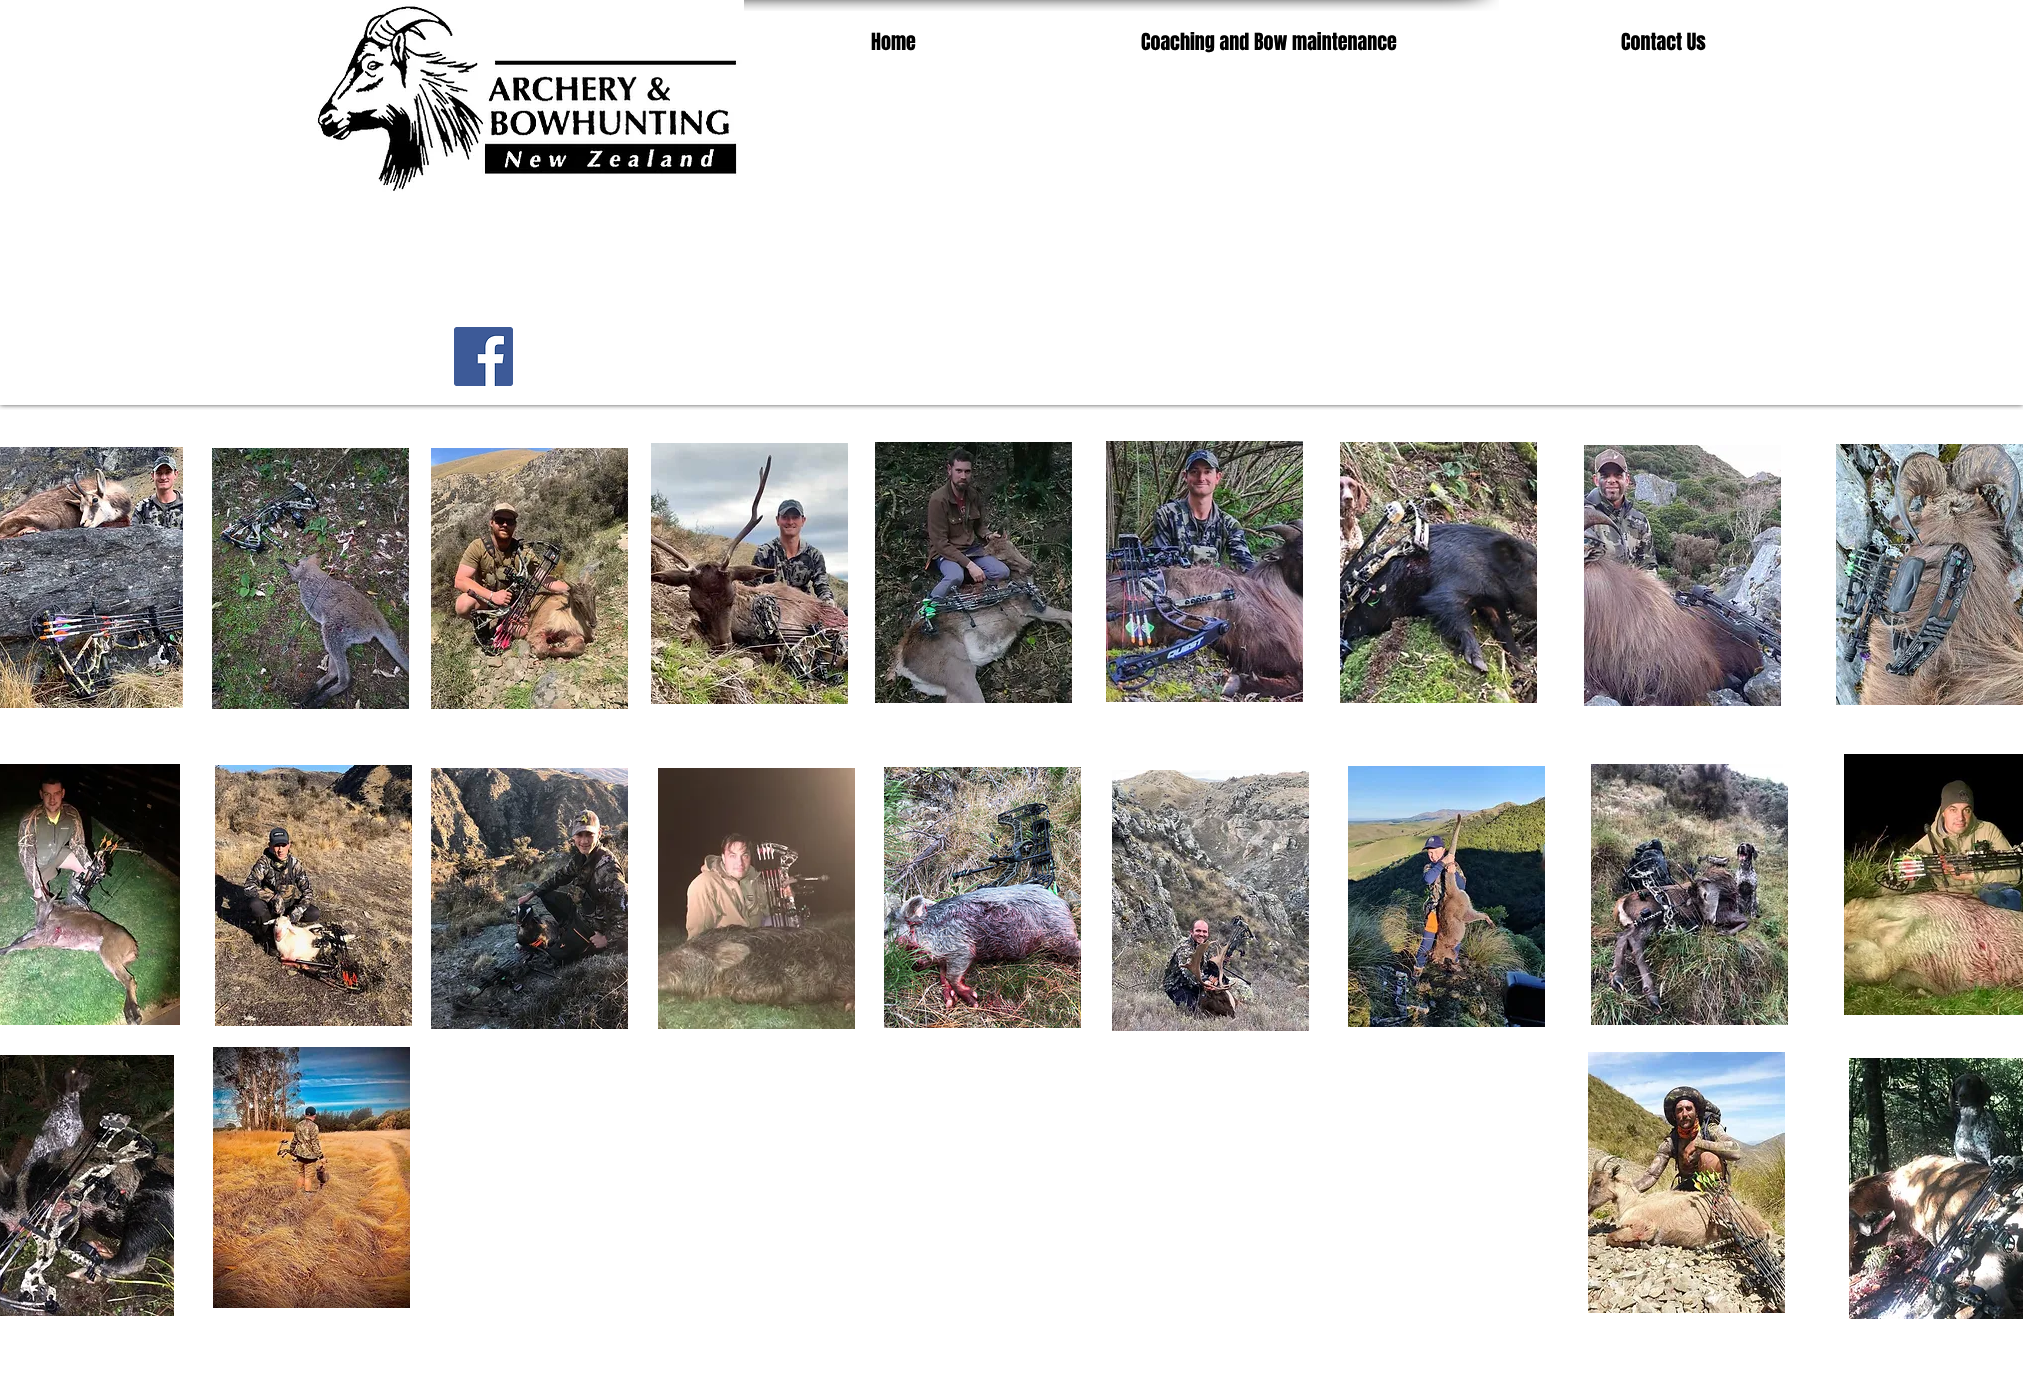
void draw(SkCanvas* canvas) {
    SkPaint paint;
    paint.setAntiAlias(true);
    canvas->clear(0xFFFFFFFF);
    canvas->drawImageRect(SkImages::DeferredFromEncodedData(SkData::MakeFromFileName("img1.png")), SkRect::MakeXYWH(744, 0, 658, 11), SkSamplingOptions());
    canvas->drawImageRect(SkImages::DeferredFromEncodedData(SkData::MakeFromFileName("img2.png")), SkRect::MakeXYWH(1402, 0, 97, 11), SkSamplingOptions());
    canvas->save();
    canvas->clipRect(SkRect::MakeXYWH(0, 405, 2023, 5));
    paint.setColor(0xB3000000);
    paint.setMaskFilter(SkMaskFilter::MakeBlur(kNormal_SkBlurStyle, 2.5f));
    canvas->drawRect(SkRect::MakeXYWH(0, 0, 2023, 405), paint);
    paint.setMaskFilter(nullptr);
    canvas->restore();
    canvas->drawImageRect(SkImages::DeferredFromEncodedData(SkData::MakeFromFileName("img3.png")), SkRect::MakeXYWH(315, 0, 429, 192), SkSamplingOptions());
    SkFont font1(fontMgr->matchFamilyStyle("Anton", SkFontStyle::Normal()), 20);
    font1.setSubpixel(true);
    paint.setColor(0xFF000000);
    canvas->drawString("Home", 871, 50, font1, paint);
    canvas->drawString("Coaching and Bow maintenance", 1141, 50, font1, paint);
    canvas->drawString("Contact Us", 1621, 50, font1, paint);
    canvas->drawImageRect(SkImages::DeferredFromEncodedData(SkData::MakeFromFileName("img4.png")), SkRect::MakeXYWH(454, 327, 59, 59), SkSamplingOptions());
    canvas->drawImageRect(SkImages::DeferredFromEncodedData(SkData::MakeFromFileName("img5.png")), SkRect::MakeXYWH(0, 447, 183, 261), SkSamplingOptions());
    canvas->drawImageRect(SkImages::DeferredFromEncodedData(SkData::MakeFromFileName("img6.png")), SkRect::MakeXYWH(212, 448, 197, 261), SkSamplingOptions());
    canvas->drawImageRect(SkImages::DeferredFromEncodedData(SkData::MakeFromFileName("img7.png")), SkRect::MakeXYWH(431, 448, 197, 261), SkSamplingOptions());
    canvas->drawImageRect(SkImages::DeferredFromEncodedData(SkData::MakeFromFileName("img8.png")), SkRect::MakeXYWH(651, 443, 197, 261), SkSamplingOptions());
    canvas->drawImageRect(SkImages::DeferredFromEncodedData(SkData::MakeFromFileName("img9.png")), SkRect::MakeXYWH(875, 442, 197, 261), SkSamplingOptions());
    canvas->drawImageRect(SkImages::DeferredFromEncodedData(SkData::MakeFromFileName("img10.png")), SkRect::MakeXYWH(1106, 441, 197, 261), SkSamplingOptions());
    canvas->drawImageRect(SkImages::DeferredFromEncodedData(SkData::MakeFromFileName("img11.png")), SkRect::MakeXYWH(1340, 442, 197, 261), SkSamplingOptions());
    canvas->drawImageRect(SkImages::DeferredFromEncodedData(SkData::MakeFromFileName("img12.png")), SkRect::MakeXYWH(1584, 445, 197, 261), SkSamplingOptions());
    canvas->drawImageRect(SkImages::DeferredFromEncodedData(SkData::MakeFromFileName("img13.png")), SkRect::MakeXYWH(1836, 444, 187, 261), SkSamplingOptions());
    canvas->drawImageRect(SkImages::DeferredFromEncodedData(SkData::MakeFromFileName("img14.png")), SkRect::MakeXYWH(0, 764, 180, 261), SkSamplingOptions());
    canvas->drawImageRect(SkImages::DeferredFromEncodedData(SkData::MakeFromFileName("img15.png")), SkRect::MakeXYWH(215, 765, 197, 261), SkSamplingOptions());
    canvas->drawImageRect(SkImages::DeferredFromEncodedData(SkData::MakeFromFileName("img16.png")), SkRect::MakeXYWH(431, 768, 197, 261), SkSamplingOptions());
    canvas->drawImageRect(SkImages::DeferredFromEncodedData(SkData::MakeFromFileName("img17.png")), SkRect::MakeXYWH(658, 768, 197, 261), SkSamplingOptions());
    canvas->drawImageRect(SkImages::DeferredFromEncodedData(SkData::MakeFromFileName("img18.png")), SkRect::MakeXYWH(884, 767, 197, 261), SkSamplingOptions());
    canvas->drawImageRect(SkImages::DeferredFromEncodedData(SkData::MakeFromFileName("img19.png")), SkRect::MakeXYWH(1112, 770, 197, 261), SkSamplingOptions());
    canvas->drawImageRect(SkImages::DeferredFromEncodedData(SkData::MakeFromFileName("img20.png")), SkRect::MakeXYWH(1348, 766, 197, 261), SkSamplingOptions());
    canvas->drawImageRect(SkImages::DeferredFromEncodedData(SkData::MakeFromFileName("img21.png")), SkRect::MakeXYWH(1591, 764, 197, 261), SkSamplingOptions());
    canvas->drawImageRect(SkImages::DeferredFromEncodedData(SkData::MakeFromFileName("img22.png")), SkRect::MakeXYWH(1844, 754, 179, 261), SkSamplingOptions());
    canvas->drawImageRect(SkImages::DeferredFromEncodedData(SkData::MakeFromFileName("img23.png")), SkRect::MakeXYWH(0, 1055, 174, 261), SkSamplingOptions());
    canvas->drawImageRect(SkImages::DeferredFromEncodedData(SkData::MakeFromFileName("img24.png")), SkRect::MakeXYWH(213, 1047, 197, 261), SkSamplingOptions());
    canvas->drawImageRect(SkImages::DeferredFromEncodedData(SkData::MakeFromFileName("img25.png")), SkRect::MakeXYWH(1588, 1052, 197, 261), SkSamplingOptions());
    canvas->drawImageRect(SkImages::DeferredFromEncodedData(SkData::MakeFromFileName("img26.png")), SkRect::MakeXYWH(1849, 1058, 174, 261), SkSamplingOptions());
}
